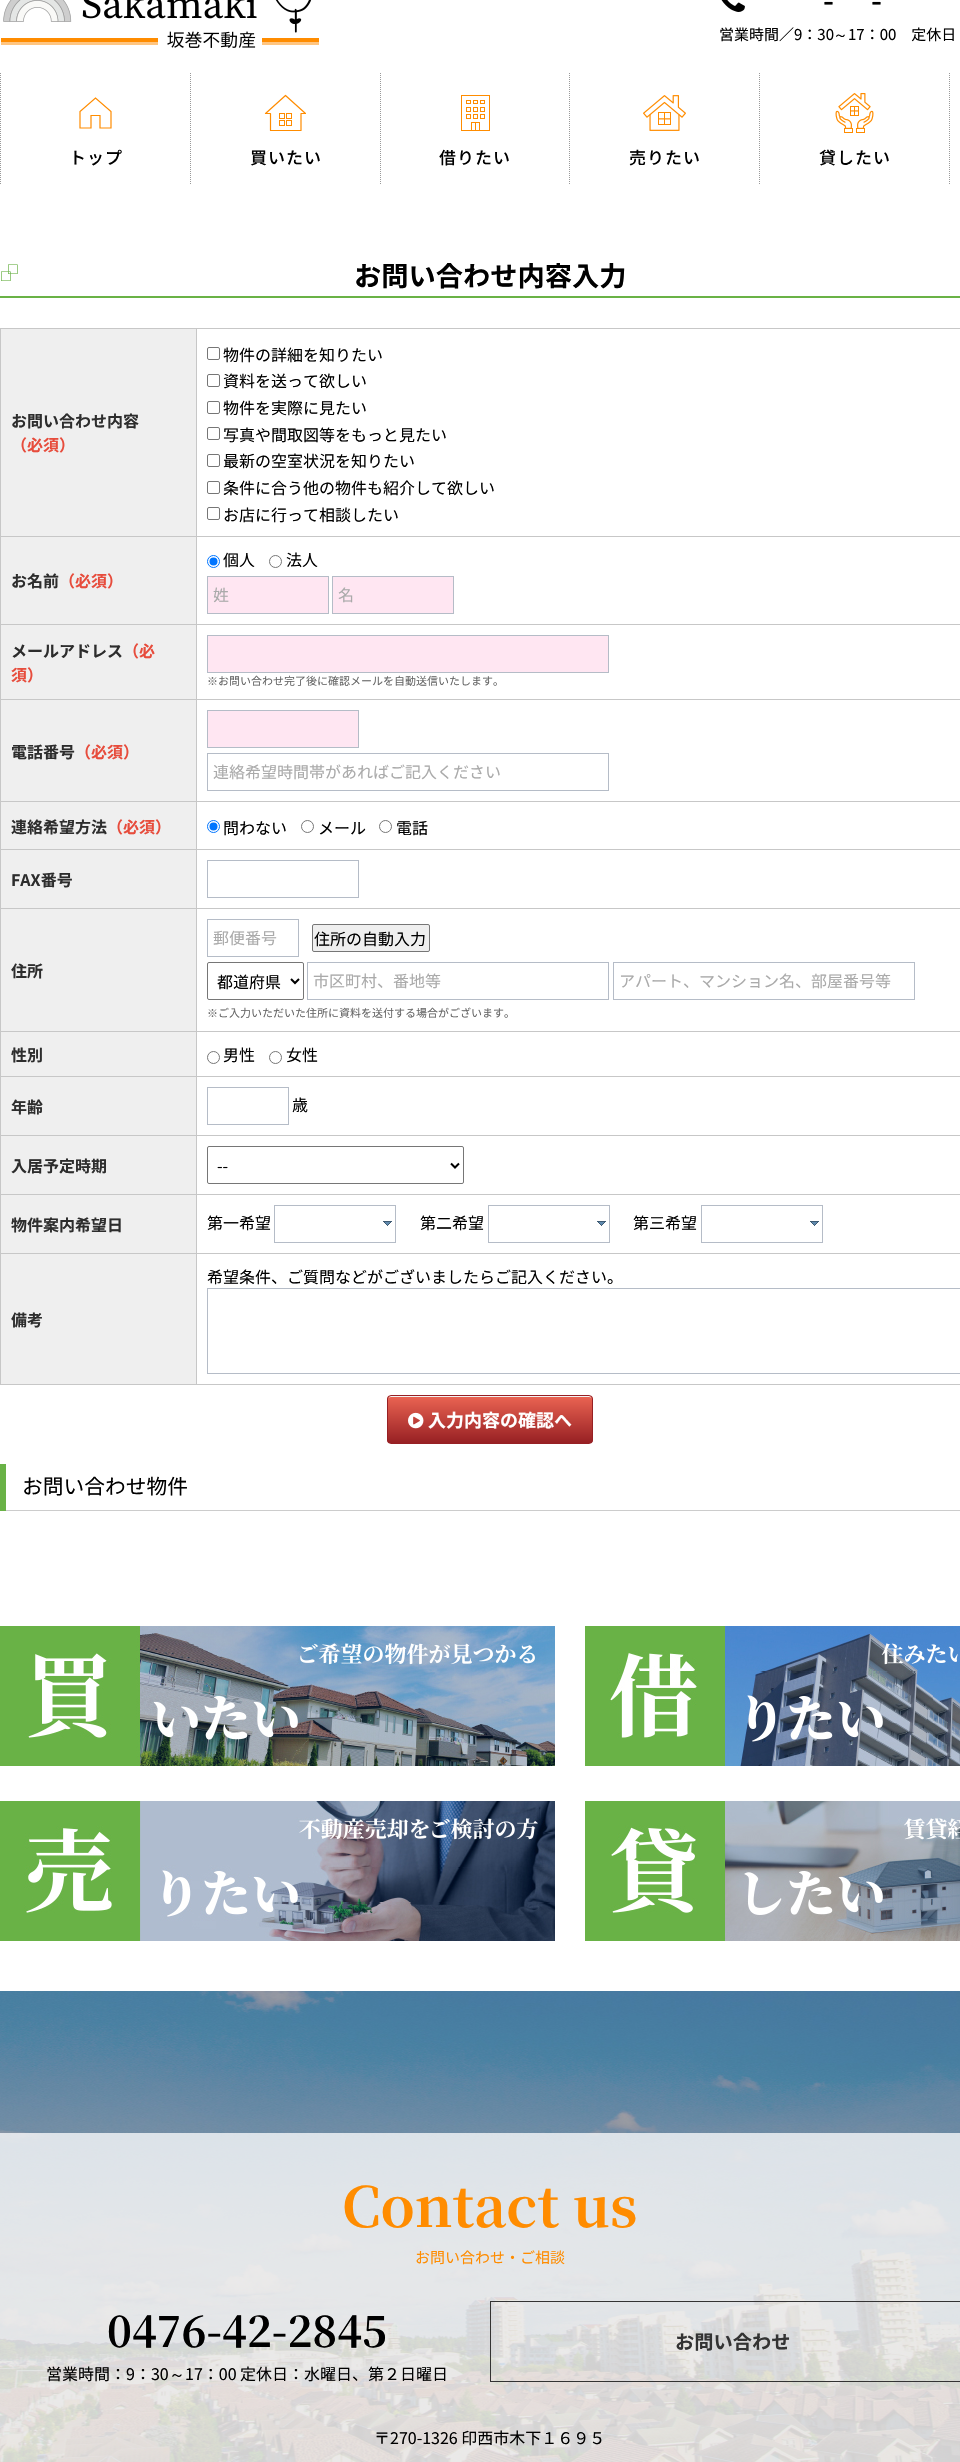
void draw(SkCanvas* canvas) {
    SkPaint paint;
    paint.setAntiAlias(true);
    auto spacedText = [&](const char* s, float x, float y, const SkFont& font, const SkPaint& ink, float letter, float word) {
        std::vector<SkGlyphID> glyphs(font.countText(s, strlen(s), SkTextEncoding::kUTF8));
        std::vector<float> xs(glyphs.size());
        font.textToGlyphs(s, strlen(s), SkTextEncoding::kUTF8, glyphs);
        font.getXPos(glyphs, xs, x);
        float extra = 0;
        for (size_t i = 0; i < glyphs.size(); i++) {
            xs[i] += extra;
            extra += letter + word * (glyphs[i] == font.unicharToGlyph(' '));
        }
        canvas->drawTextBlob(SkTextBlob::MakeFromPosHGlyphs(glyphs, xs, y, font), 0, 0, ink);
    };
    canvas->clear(0xFFFFFFFF);
    canvas->drawImageRect(SkImages::DeferredFromEncodedData(SkData::MakeFromFileName("img1.png")), SkRect::MakeXYWH(1, 0, 318, 48), SkSamplingOptions());
    canvas->drawImageRect(SkImages::DeferredFromEncodedData(SkData::MakeFromFileName("img2.png")), SkRect::MakeXYWH(721, 0, 24, 12), SkSamplingOptions());
    SkFont font1(fontMgr->matchFamilyStyle("Liberation Sans", SkFontStyle::Normal()), 33);
    font1.setSubpixel(true);
    paint.setColor(0xFF000000);
    canvas->drawString("-", 823, 12, font1, paint);
    canvas->drawString("-", 871, 12, font1, paint);
    SkFont font2(fontMgr->matchFamilyStyle("Noto Sans JP", SkFontStyle::Normal()), 15);
    font2.setSubpixel(true);
    canvas->drawString("営業時間／9：30", 719, 40, font2, paint);
    SkFont font3(fontMgr->matchFamilyStyle("WenQuanYi Zen Hei", SkFontStyle(500, SkFontStyle::kNormal_Width, SkFontStyle::kUpright_Slant)), 15);
    font3.setSubpixel(true);
    canvas->drawString("～", 833, 40, font3, paint);
    canvas->drawString("17：00　定休日", 848, 40, font2, paint);
    paint.setStyle(SkPaint::kStroke_Style);
    paint.setStrokeWidth(1);
    paint.setColor(0xFF999999);
    paint.setPathEffect(SkDashPathEffect::Make({{1, 1}}, 0));
    canvas->drawPath(SkPathBuilder().moveTo(190.5f, 73).lineTo(190.5f, 185).detach(), paint);
    paint.setPathEffect(nullptr);
    paint.setPathEffect(SkDashPathEffect::Make({{1, 1}}, 0));
    canvas->drawPath(SkPathBuilder().moveTo(0.5f, 73).lineTo(0.5f, 185).detach(), paint);
    paint.setPathEffect(nullptr);
    paint.setStrokeWidth(1.2f);
    paint.setColor(0xFFFF8C00);
    canvas->drawPath(SkPathBuilder().moveTo(111, 111.5f).lineTo(111, 128).lineTo(100, 128).lineTo(100, 115.5f).lineTo(91, 115.5f).lineTo(91, 128).lineTo(80, 128).lineTo(80, 111.5f).lineTo(95.5f, 98).close().detach(), paint);
    SkFont font4(fontMgr->matchFamilyStyle("Noto Sans JP", SkFontStyle(500, SkFontStyle::kNormal_Width, SkFontStyle::kUpright_Slant)), 17);
    font4.setSubpixel(true);
    paint.setStyle(SkPaint::kFill_Style);
    paint.setColor(0xFF000000);
    spacedText("トップ", 69, 164, font4, paint, 1, 0);
    paint.setStyle(SkPaint::kStroke_Style);
    paint.setStrokeWidth(1);
    paint.setColor(0xFF999999);
    paint.setPathEffect(SkDashPathEffect::Make({{1, 1}}, 0));
    canvas->drawPath(SkPathBuilder().moveTo(380.5f, 73).lineTo(380.5f, 185).detach(), paint);
    paint.setPathEffect(nullptr);
    paint.setStrokeWidth(1.2f);
    paint.setStrokeJoin(SkPaint::kRound_Join);
    paint.setColor(0xFFFF8C00);
    canvas->drawPath(SkPathBuilder().moveTo(305.5f, 113.5f).lineTo(285.5f, 95.5f).lineTo(265.5f, 113.5f).lineTo(270.5f, 113.5f).lineTo(270.5f, 130.5f).lineTo(301, 130.5f).lineTo(301, 113.5f).close().detach(), paint);
    paint.setStrokeWidth(1);
    paint.setStrokeJoin(SkPaint::kMiter_Join);
    canvas->drawRect(SkRect::MakeXYWH(279.5f, 120.5f, 5, 5), paint);
    canvas->drawRect(SkRect::MakeXYWH(279.5f, 113.5f, 5, 5), paint);
    canvas->drawRect(SkRect::MakeXYWH(286.5f, 120.5f, 5, 5), paint);
    canvas->drawRect(SkRect::MakeXYWH(286.5f, 113.5f, 5, 5), paint);
    paint.setStyle(SkPaint::kFill_Style);
    paint.setColor(0xFF000000);
    spacedText("買いたい", 250, 164, font4, paint, 1, 0);
    paint.setStyle(SkPaint::kStroke_Style);
    paint.setColor(0xFF999999);
    paint.setPathEffect(SkDashPathEffect::Make({{1, 1}}, 0));
    canvas->drawPath(SkPathBuilder().moveTo(569.5f, 73).lineTo(569.5f, 185).detach(), paint);
    paint.setPathEffect(nullptr);
    canvas->drawImageRect(SkImages::DeferredFromEncodedData(SkData::MakeFromFileName("img3.png")), SkRect::MakeXYWH(461, 95, 29, 36), SkSamplingOptions());
    paint.setStyle(SkPaint::kFill_Style);
    paint.setColor(0xFF000000);
    spacedText("借りたい", 439, 164, font4, paint, 1, 0);
    paint.setStyle(SkPaint::kStroke_Style);
    paint.setColor(0xFF999999);
    paint.setPathEffect(SkDashPathEffect::Make({{1, 1}}, 0));
    canvas->drawPath(SkPathBuilder().moveTo(759.5f, 73).lineTo(759.5f, 185).detach(), paint);
    paint.setPathEffect(nullptr);
    canvas->drawImageRect(SkImages::DeferredFromEncodedData(SkData::MakeFromFileName("img4.png")), SkRect::MakeXYWH(643, 95, 43, 36), SkSamplingOptions());
    paint.setStyle(SkPaint::kFill_Style);
    paint.setColor(0xFF000000);
    spacedText("売りたい", 629, 164, font4, paint, 1, 0);
    paint.setStyle(SkPaint::kStroke_Style);
    paint.setColor(0xFF999999);
    paint.setPathEffect(SkDashPathEffect::Make({{1, 1}}, 0));
    canvas->drawPath(SkPathBuilder().moveTo(949.5f, 73).lineTo(949.5f, 185).detach(), paint);
    paint.setPathEffect(nullptr);
    canvas->drawImageRect(SkImages::DeferredFromEncodedData(SkData::MakeFromFileName("img5.png")), SkRect::MakeXYWH(835, 93, 39, 40), SkSamplingOptions());
    paint.setStyle(SkPaint::kFill_Style);
    paint.setColor(0xFF000000);
    spacedText("貸したい", 819, 164, font4, paint, 1, 0);
    paint.setColor(0xFF69B246);
    canvas->drawRect(SkRect::MakeXYWH(0, 296, 960, 2), paint);
    SkFont font5(fontMgr->matchFamilyStyle("Liberation Sans", SkFontStyle::Bold()), 16);
    font5.setSubpixel(true);
    canvas->drawString("□", 8, 274, font5, paint);
    SkFont font6(fontMgr->matchFamilyStyle("Noto Sans JP", SkFontStyle::Bold()), 27.25f);
    font6.setSubpixel(true);
    paint.setColor(0xFF000000);
    canvas->drawString("お問い合わせ内容入力", 354, 286, font6, paint);
    paint.setColor(0xFF69B246);
    canvas->drawString("□", 1, 281, font5, paint);
    paint.setColor(0xFFEFEFEF);
    canvas->drawRect(SkRect::MakeXYWH(1, 329, 195, 207), paint);
    paint.setColor(0xFFC7C7C7);
    canvas->drawRect(SkRect::MakeXYWH(196, 328, 764, 1), paint);
    canvas->drawRect(SkRect::MakeXYWH(196, 536, 764, 1), paint);
    canvas->drawRect(SkRect::MakeXYWH(196, 624, 764, 1), paint);
    canvas->drawRect(SkRect::MakeXYWH(196, 699, 764, 1), paint);
    canvas->drawRect(SkRect::MakeXYWH(196, 801, 764, 1), paint);
    canvas->drawRect(SkRect::MakeXYWH(196, 849, 764, 1), paint);
    canvas->drawRect(SkRect::MakeXYWH(196, 908, 764, 1), paint);
    canvas->drawRect(SkRect::MakeXYWH(196, 1031, 764, 1), paint);
    canvas->drawRect(SkRect::MakeXYWH(196, 1076, 764, 1), paint);
    canvas->drawRect(SkRect::MakeXYWH(196, 1135, 764, 1), paint);
    canvas->drawRect(SkRect::MakeXYWH(196, 1194, 764, 1), paint);
    canvas->drawRect(SkRect::MakeXYWH(196, 1253, 764, 1), paint);
    canvas->drawRect(SkRect::MakeXYWH(196, 1384, 764, 1), paint);
    canvas->drawRect(SkRect::MakeXYWH(196, 1253, 1, 132), paint);
    canvas->drawRect(SkRect::MakeXYWH(0, 1253, 197, 1), paint);
    canvas->drawRect(SkRect::MakeXYWH(196, 1194, 1, 60), paint);
    canvas->drawRect(SkRect::MakeXYWH(0, 1194, 197, 1), paint);
    canvas->drawRect(SkRect::MakeXYWH(196, 1135, 1, 60), paint);
    canvas->drawRect(SkRect::MakeXYWH(0, 1135, 197, 1), paint);
    canvas->drawRect(SkRect::MakeXYWH(196, 1076, 1, 60), paint);
    canvas->drawRect(SkRect::MakeXYWH(0, 1076, 197, 1), paint);
    canvas->drawRect(SkRect::MakeXYWH(196, 1031, 1, 46), paint);
    canvas->drawRect(SkRect::MakeXYWH(0, 1031, 197, 1), paint);
    canvas->drawRect(SkRect::MakeXYWH(196, 908, 1, 124), paint);
    canvas->drawRect(SkRect::MakeXYWH(0, 908, 197, 1), paint);
    canvas->drawRect(SkRect::MakeXYWH(196, 849, 1, 60), paint);
    canvas->drawRect(SkRect::MakeXYWH(0, 849, 197, 1), paint);
    canvas->drawRect(SkRect::MakeXYWH(196, 801, 1, 49), paint);
    canvas->drawRect(SkRect::MakeXYWH(0, 801, 197, 1), paint);
    canvas->drawRect(SkRect::MakeXYWH(196, 699, 1, 103), paint);
    canvas->drawRect(SkRect::MakeXYWH(0, 699, 197, 1), paint);
    canvas->drawRect(SkRect::MakeXYWH(196, 624, 1, 76), paint);
    canvas->drawRect(SkRect::MakeXYWH(0, 624, 197, 1), paint);
    canvas->drawRect(SkRect::MakeXYWH(196, 536, 1, 89), paint);
    canvas->drawRect(SkRect::MakeXYWH(0, 536, 197, 1), paint);
    canvas->drawRect(SkRect::MakeXYWH(196, 328, 1, 209), paint);
    canvas->drawRect(SkRect::MakeXYWH(0, 328, 197, 1), paint);
    canvas->drawRect(SkRect::MakeXYWH(0, 1384, 197, 1), paint);
    canvas->drawRect(SkRect::MakeXYWH(0, 1253, 1, 132), paint);
    canvas->drawRect(SkRect::MakeXYWH(0, 1194, 1, 60), paint);
    canvas->drawRect(SkRect::MakeXYWH(0, 1135, 1, 60), paint);
    canvas->drawRect(SkRect::MakeXYWH(0, 1076, 1, 60), paint);
    canvas->drawRect(SkRect::MakeXYWH(0, 1031, 1, 46), paint);
    canvas->drawRect(SkRect::MakeXYWH(0, 908, 1, 124), paint);
    canvas->drawRect(SkRect::MakeXYWH(0, 849, 1, 60), paint);
    canvas->drawRect(SkRect::MakeXYWH(0, 801, 1, 49), paint);
    canvas->drawRect(SkRect::MakeXYWH(0, 699, 1, 103), paint);
    canvas->drawRect(SkRect::MakeXYWH(0, 624, 1, 76), paint);
    canvas->drawRect(SkRect::MakeXYWH(0, 536, 1, 89), paint);
    canvas->drawRect(SkRect::MakeXYWH(0, 328, 1, 209), paint);
    SkFont font7(fontMgr->matchFamilyStyle("Noto Sans JP", SkFontStyle::Bold()), 16);
    font7.setSubpixel(true);
    paint.setColor(0xFF2D2D2D);
    canvas->drawString("お問い合わせ内容", 11, 427, font7, paint);
    paint.setColor(0xFFE74C3C);
    canvas->drawString("（必須）", 11, 451, font7, paint);
    paint.setStyle(SkPaint::kStroke_Style);
    paint.setColor(0xFF767676);
    canvas->drawRoundRect(SkRect::MakeXYWH(207.5f, 347.5f, 12, 12), 1.5f, 1.5f, paint);
    SkFont font8(fontMgr->matchFamilyStyle("Noto Sans JP", SkFontStyle::Normal()), 16);
    font8.setSubpixel(true);
    paint.setStyle(SkPaint::kFill_Style);
    paint.setColor(0xFF000000);
    canvas->drawString("物件の詳細を知りたい", 223, 361, font8, paint);
    paint.setStyle(SkPaint::kStroke_Style);
    paint.setColor(0xFF767676);
    canvas->drawRoundRect(SkRect::MakeXYWH(207.5f, 374.5f, 12, 12), 1.5f, 1.5f, paint);
    paint.setStyle(SkPaint::kFill_Style);
    paint.setColor(0xFF000000);
    canvas->drawString("資料を送って欲しい", 223, 387, font8, paint);
    paint.setStyle(SkPaint::kStroke_Style);
    paint.setColor(0xFF767676);
    canvas->drawRoundRect(SkRect::MakeXYWH(207.5f, 401.5f, 12, 12), 1.5f, 1.5f, paint);
    paint.setStyle(SkPaint::kFill_Style);
    paint.setColor(0xFF000000);
    canvas->drawString("物件を実際に見たい", 223, 414, font8, paint);
    paint.setStyle(SkPaint::kStroke_Style);
    paint.setColor(0xFF767676);
    canvas->drawRoundRect(SkRect::MakeXYWH(207.5f, 427.5f, 12, 12), 1.5f, 1.5f, paint);
    paint.setStyle(SkPaint::kFill_Style);
    paint.setColor(0xFF000000);
    canvas->drawString("写真や間取図等をもっと見たい", 223, 441, font8, paint);
    paint.setStyle(SkPaint::kStroke_Style);
    paint.setColor(0xFF767676);
    canvas->drawRoundRect(SkRect::MakeXYWH(207.5f, 454.5f, 12, 12), 1.5f, 1.5f, paint);
    paint.setStyle(SkPaint::kFill_Style);
    paint.setColor(0xFF000000);
    canvas->drawString("最新の空室状況を知りたい", 223, 467, font8, paint);
    paint.setStyle(SkPaint::kStroke_Style);
    paint.setColor(0xFF767676);
    canvas->drawRoundRect(SkRect::MakeXYWH(207.5f, 481.5f, 12, 12), 1.5f, 1.5f, paint);
    paint.setStyle(SkPaint::kFill_Style);
    paint.setColor(0xFF000000);
    canvas->drawString("条件に合う他の物件も紹介して欲しい", 223, 494, font8, paint);
    paint.setStyle(SkPaint::kStroke_Style);
    paint.setColor(0xFF767676);
    canvas->drawRoundRect(SkRect::MakeXYWH(207.5f, 507.5f, 12, 12), 1.5f, 1.5f, paint);
    paint.setStyle(SkPaint::kFill_Style);
    paint.setColor(0xFF000000);
    canvas->drawString("お店に行って相談したい", 223, 521, font8, paint);
    paint.setColor(0xFFEFEFEF);
    canvas->drawRect(SkRect::MakeXYWH(1, 537, 195, 87), paint);
    paint.setColor(0xFF2D2D2D);
    canvas->drawString("お名前", 11, 587, font7, paint);
    paint.setColor(0xFFE74C3C);
    canvas->drawString("（必須）", 59, 587, font7, paint);
    paint.setStyle(SkPaint::kStroke_Style);
    paint.setColor(0xFF0075FF);
    canvas->drawCircle(213.5f, 561.5f, 6, paint);
    paint.setStyle(SkPaint::kFill_Style);
    canvas->drawCircle(213.5f, 561.5f, 4, paint);
    paint.setColor(0xFF000000);
    canvas->drawString("個人", 223, 566, font8, paint);
    paint.setStyle(SkPaint::kStroke_Style);
    paint.setColor(0xFF767676);
    canvas->drawCircle(275.5f, 561.5f, 6, paint);
    paint.setStyle(SkPaint::kFill_Style);
    paint.setColor(0xFF000000);
    canvas->drawString("法人", 286, 566, font8, paint);
    paint.setColor(0xFFFFE6F2);
    canvas->drawRect(SkRect::MakeXYWH(207.5f, 576.5f, 121, 37), paint);
    paint.setStyle(SkPaint::kStroke_Style);
    paint.setColor(0xFFB5BCC7);
    canvas->drawRect(SkRect::MakeXYWH(207.5f, 576.5f, 121, 37), paint);
    paint.setStyle(SkPaint::kFill_Style);
    paint.setColor(0xFFAAAAAA);
    canvas->drawString("姓", 213, 601, font8, paint);
    paint.setColor(0xFFFFE6F2);
    canvas->drawRect(SkRect::MakeXYWH(332.5f, 576.5f, 121, 37), paint);
    paint.setStyle(SkPaint::kStroke_Style);
    paint.setColor(0xFFB5BCC7);
    canvas->drawRect(SkRect::MakeXYWH(332.5f, 576.5f, 121, 37), paint);
    paint.setStyle(SkPaint::kFill_Style);
    paint.setColor(0xFFAAAAAA);
    canvas->drawString("名", 338, 601, font8, paint);
    paint.setColor(0xFFEFEFEF);
    canvas->drawRect(SkRect::MakeXYWH(1, 625, 195, 74), paint);
    paint.setColor(0xFF2D2D2D);
    canvas->drawString("メールアドレス", 11, 657, font7, paint);
    paint.setColor(0xFFE74C3C);
    canvas->drawString("（必", 123, 657, font7, paint);
    canvas->drawString("須）", 11, 681, font7, paint);
    paint.setColor(0xFFFFE6F2);
    canvas->drawRect(SkRect::MakeXYWH(207.5f, 635.5f, 401, 37), paint);
    paint.setStyle(SkPaint::kStroke_Style);
    paint.setColor(0xFFB5BCC7);
    canvas->drawRect(SkRect::MakeXYWH(207.5f, 635.5f, 401, 37), paint);
    SkFont font9(fontMgr->matchFamilyStyle("WenQuanYi Zen Hei", SkFontStyle(500, SkFontStyle::kNormal_Width, SkFontStyle::kUpright_Slant)), 11);
    font9.setSubpixel(true);
    paint.setStyle(SkPaint::kFill_Style);
    paint.setColor(0xFF666666);
    canvas->drawString("※", 207, 685, font9, paint);
    SkFont font10(fontMgr->matchFamilyStyle("Noto Sans JP", SkFontStyle::Normal()), 11);
    font10.setSubpixel(true);
    canvas->drawString("お問い合わせ完了後に確認メールを自動送信いたします。", 218, 685, font10, paint);
    paint.setColor(0xFFEFEFEF);
    canvas->drawRect(SkRect::MakeXYWH(1, 700, 195, 101), paint);
    paint.setColor(0xFF2D2D2D);
    canvas->drawString("電話番号", 11, 758, font7, paint);
    paint.setColor(0xFFE74C3C);
    canvas->drawString("（必須）", 75, 758, font7, paint);
    paint.setColor(0xFFFFE6F2);
    canvas->drawRect(SkRect::MakeXYWH(207.5f, 710.5f, 151, 37), paint);
    paint.setStyle(SkPaint::kStroke_Style);
    paint.setColor(0xFFB5BCC7);
    canvas->drawRect(SkRect::MakeXYWH(207.5f, 710.5f, 151, 37), paint);
    canvas->drawRect(SkRect::MakeXYWH(207.5f, 753.5f, 401, 37), paint);
    paint.setStyle(SkPaint::kFill_Style);
    paint.setColor(0xFFAAAAAA);
    canvas->drawString("連絡希望時間帯があればご記入ください", 213, 778, font8, paint);
    paint.setColor(0xFFEFEFEF);
    canvas->drawRect(SkRect::MakeXYWH(1, 802, 195, 47), paint);
    paint.setColor(0xFF2D2D2D);
    canvas->drawString("連絡希望方法", 11, 833, font7, paint);
    paint.setColor(0xFFE74C3C);
    canvas->drawString("（必須）", 107, 833, font7, paint);
    paint.setStyle(SkPaint::kStroke_Style);
    paint.setColor(0xFF0075FF);
    canvas->drawCircle(213.5f, 826.5f, 6, paint);
    paint.setStyle(SkPaint::kFill_Style);
    canvas->drawCircle(213.5f, 826.5f, 4, paint);
    paint.setColor(0xFF000000);
    canvas->drawString("問わない", 223, 834, font8, paint);
    paint.setStyle(SkPaint::kStroke_Style);
    paint.setColor(0xFF767676);
    canvas->drawCircle(307.5f, 826.5f, 6, paint);
    paint.setStyle(SkPaint::kFill_Style);
    paint.setColor(0xFF000000);
    canvas->drawString("メール", 318, 834, font8, paint);
    paint.setStyle(SkPaint::kStroke_Style);
    paint.setColor(0xFF767676);
    canvas->drawCircle(385.5f, 826.5f, 6, paint);
    paint.setStyle(SkPaint::kFill_Style);
    paint.setColor(0xFF000000);
    canvas->drawString("電話", 396, 834, font8, paint);
    paint.setColor(0xFFEFEFEF);
    canvas->drawRect(SkRect::MakeXYWH(1, 850, 195, 58), paint);
    paint.setColor(0xFF2D2D2D);
    canvas->drawString("FAX番号", 11, 886, font7, paint);
    paint.setStyle(SkPaint::kStroke_Style);
    paint.setColor(0xFFB5BCC7);
    canvas->drawRect(SkRect::MakeXYWH(207.5f, 860.5f, 151, 37), paint);
    paint.setStyle(SkPaint::kFill_Style);
    paint.setColor(0xFFEFEFEF);
    canvas->drawRect(SkRect::MakeXYWH(1, 909, 195, 122), paint);
    paint.setColor(0xFF2D2D2D);
    canvas->drawString("住所", 11, 977, font7, paint);
    paint.setStyle(SkPaint::kStroke_Style);
    paint.setColor(0xFFB5BCC7);
    canvas->drawRect(SkRect::MakeXYWH(207.5f, 919.5f, 91, 37), paint);
    paint.setStyle(SkPaint::kFill_Style);
    paint.setColor(0xFFAAAAAA);
    canvas->drawString("郵便番号", 213, 944, font8, paint);
    paint.setColor(0xFFEFEFEF);
    canvas->drawRoundRect(SkRect::MakeXYWH(312.5f, 924.5f, 117, 27), 1.5f, 1.5f, paint);
    paint.setStyle(SkPaint::kStroke_Style);
    paint.setColor(0xFF767676);
    canvas->drawRoundRect(SkRect::MakeXYWH(312.5f, 924.5f, 117, 27), 1.5f, 1.5f, paint);
    paint.setStyle(SkPaint::kFill_Style);
    paint.setColor(0xFF000000);
    canvas->drawString("住所の自動入力", 314, 945, font8, paint);
    paint.setStyle(SkPaint::kStroke_Style);
    paint.setColor(0xFF767676);
    canvas->drawRoundRect(SkRect::MakeXYWH(207.5f, 962.5f, 96, 37), 1.5f, 1.5f, paint);
    paint.setStrokeWidth(2);
    paint.setColor(0xFF000000);
    canvas->drawPath(SkPathBuilder().moveTo(291, 979).lineTo(295, 983).lineTo(299, 979).detach(), paint);
    paint.setStyle(SkPaint::kFill_Style);
    canvas->drawString("都道府県", 217, 988, font8, paint);
    paint.setStyle(SkPaint::kStroke_Style);
    paint.setStrokeWidth(1);
    paint.setColor(0xFFB5BCC7);
    canvas->drawRect(SkRect::MakeXYWH(307.5f, 962.5f, 301, 37), paint);
    paint.setStyle(SkPaint::kFill_Style);
    paint.setColor(0xFFAAAAAA);
    canvas->drawString("市区町村、番地等", 313, 987, font8, paint);
    paint.setStyle(SkPaint::kStroke_Style);
    paint.setColor(0xFFB5BCC7);
    canvas->drawRect(SkRect::MakeXYWH(613.5f, 962.5f, 301, 37), paint);
    paint.setStyle(SkPaint::kFill_Style);
    paint.setColor(0xFFAAAAAA);
    canvas->drawString("アパート、マンション名、部屋番号等", 619, 987, font8, paint);
    paint.setColor(0xFF666666);
    canvas->drawString("※", 207, 1017, font9, paint);
    canvas->drawString("ご入力いただいた住所に資料を送付する場合がございます。", 218, 1017, font10, paint);
    paint.setColor(0xFFEFEFEF);
    canvas->drawRect(SkRect::MakeXYWH(1, 1032, 195, 44), paint);
    paint.setColor(0xFF2D2D2D);
    canvas->drawString("性別", 11, 1061, font7, paint);
    paint.setStyle(SkPaint::kStroke_Style);
    paint.setColor(0xFF767676);
    canvas->drawCircle(213.5f, 1057.5f, 6, paint);
    paint.setStyle(SkPaint::kFill_Style);
    paint.setColor(0xFF000000);
    canvas->drawString("男性", 223, 1061, font8, paint);
    paint.setStyle(SkPaint::kStroke_Style);
    paint.setColor(0xFF767676);
    canvas->drawCircle(275.5f, 1057.5f, 6, paint);
    paint.setStyle(SkPaint::kFill_Style);
    paint.setColor(0xFF000000);
    canvas->drawString("女性", 286, 1061, font8, paint);
    paint.setColor(0xFFEFEFEF);
    canvas->drawRect(SkRect::MakeXYWH(1, 1077, 195, 58), paint);
    paint.setColor(0xFF2D2D2D);
    canvas->drawString("年齢", 11, 1113, font7, paint);
    paint.setStyle(SkPaint::kStroke_Style);
    paint.setColor(0xFFB5BCC7);
    canvas->drawRect(SkRect::MakeXYWH(207.5f, 1087.5f, 81, 37), paint);
    paint.setStyle(SkPaint::kFill_Style);
    paint.setColor(0xFF000000);
    canvas->drawString("歳", 292, 1111, font8, paint);
    paint.setColor(0xFFEFEFEF);
    canvas->drawRect(SkRect::MakeXYWH(1, 1136, 195, 58), paint);
    paint.setColor(0xFF2D2D2D);
    canvas->drawString("入居予定時期", 11, 1172, font7, paint);
    paint.setStyle(SkPaint::kStroke_Style);
    paint.setColor(0xFF767676);
    canvas->drawRoundRect(SkRect::MakeXYWH(207.5f, 1146.5f, 256, 37), 1.5f, 1.5f, paint);
    paint.setStrokeWidth(2);
    paint.setColor(0xFF000000);
    canvas->drawPath(SkPathBuilder().moveTo(451, 1163.5f).lineTo(455, 1167.5f).lineTo(459, 1163.5f).detach(), paint);
    paint.setStyle(SkPaint::kFill_Style);
    canvas->drawString("--", 217, 1172, font8, paint);
    paint.setColor(0xFFEFEFEF);
    canvas->drawRect(SkRect::MakeXYWH(1, 1195, 195, 58), paint);
    paint.setColor(0xFF2D2D2D);
    canvas->drawString("物件案内希望日", 11, 1231, font7, paint);
    paint.setColor(0xFF000000);
    canvas->drawString("第一希望", 207, 1229, font8, paint);
    paint.setStyle(SkPaint::kStroke_Style);
    paint.setStrokeWidth(1);
    paint.setColor(0xFFB5BCC7);
    canvas->drawRect(SkRect::MakeXYWH(274.5f, 1205.5f, 121, 37), paint);
    canvas->drawImageRect(SkImages::DeferredFromEncodedData(SkData::MakeFromFileName("img6.png")), SkRect::MakeXYWH(383, 1221, 9, 5), SkSamplingOptions());
    paint.setStyle(SkPaint::kFill_Style);
    paint.setColor(0xFF000000);
    canvas->drawString("第二希望", 420, 1229, font8, paint);
    paint.setStyle(SkPaint::kStroke_Style);
    paint.setColor(0xFFB5BCC7);
    canvas->drawRect(SkRect::MakeXYWH(488.5f, 1205.5f, 121, 37), paint);
    canvas->drawImageRect(SkImages::DeferredFromEncodedData(SkData::MakeFromFileName("img6.png")), SkRect::MakeXYWH(597, 1221, 9, 5), SkSamplingOptions());
    paint.setStyle(SkPaint::kFill_Style);
    paint.setColor(0xFF000000);
    canvas->drawString("第三希望", 633, 1229, font8, paint);
    paint.setStyle(SkPaint::kStroke_Style);
    paint.setColor(0xFFB5BCC7);
    canvas->drawRect(SkRect::MakeXYWH(701.5f, 1205.5f, 121, 37), paint);
    canvas->drawImageRect(SkImages::DeferredFromEncodedData(SkData::MakeFromFileName("img6.png")), SkRect::MakeXYWH(810, 1221, 9, 5), SkSamplingOptions());
    paint.setStyle(SkPaint::kFill_Style);
    paint.setColor(0xFF000000);
    canvas->drawString("希望条件、ご質問などがございましたらご記入ください。", 207, 1283, font8, paint);
    paint.setStyle(SkPaint::kStroke_Style);
    paint.setColor(0xFFB5BCC7);
    canvas->drawRect(SkRect::MakeXYWH(207.5f, 1288.5f, 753, 85), paint);
    paint.setStyle(SkPaint::kFill_Style);
    paint.setColor(0xFFEFEFEF);
    canvas->drawRect(SkRect::MakeXYWH(1, 1254, 195, 130), paint);
    paint.setColor(0xFF2D2D2D);
    canvas->drawString("備考", 11, 1326, font7, paint);
    canvas->save();
    canvas->clipPath(SkPathBuilder().moveTo(391, 1395).lineTo(589, 1395).cubicTo(591, 1395, 593, 1397, 593, 1399).lineTo(593, 1440).cubicTo(593, 1442, 591, 1444, 589, 1444).lineTo(391, 1444).cubicTo(389, 1444, 387, 1442, 387, 1440).lineTo(387, 1399).cubicTo(387, 1397, 389, 1395, 391, 1395).close().detach(), true);
    {
        const SkColor colors[] = {0xFFEB6452, 0xFF972024};
        const float stops[] = {0, 1};
        const SkPoint ends[] = {{490, 1396}, {490, 1443}};
        paint.setShader(SkGradientShader::MakeLinear(ends, colors, stops, 2, SkTileMode::kClamp));
        paint.setAlpha(255);
    }
    canvas->drawRect(SkRect::MakeXYWH(387, 1396, 206, 47), paint);
    canvas->restore();
    paint.setShader(nullptr);
    paint.setColor(0xFFF3F3F3);
    canvas->drawPath(SkPathBuilder().moveTo(391, 1397).lineTo(589, 1397).cubicTo(591, 1397, 592, 1398, 592, 1400).cubicTo(592, 1398, 591, 1396, 589, 1396).lineTo(391, 1396).cubicTo(389, 1396, 388, 1398, 388, 1400).cubicTo(388, 1398, 389, 1397, 391, 1397).close().detach(), paint);
    paint.setStyle(SkPaint::kStroke_Style);
    paint.setColor(0xFF972024);
    canvas->drawRoundRect(SkRect::MakeXYWH(387.5f, 1395.5f, 205, 48), 3.5f, 3.5f, paint);
    canvas->drawImageRect(SkImages::DeferredFromEncodedData(SkData::MakeFromFileName("img7.png")), SkRect::MakeXYWH(408, 1412, 16, 17), SkSamplingOptions());
    SkFont font11(fontMgr->matchFamilyStyle("Noto Sans JP", SkFontStyle::Bold()), 18);
    font11.setSubpixel(true);
    paint.setStyle(SkPaint::kFill_Style);
    paint.setColor(0xFFFFFFFF);
    canvas->drawString("入力内容の確認へ", 428, 1427, font11, paint);
    paint.setColor(0xFF69B246);
    canvas->drawRect(SkRect::MakeXYWH(0, 1464, 6, 47), paint);
    SkFont font12(fontMgr->matchFamilyStyle("Noto Sans JP", SkFontStyle::Normal()), 20.75f);
    font12.setSubpixel(true);
    paint.setColor(0xFF000000);
    canvas->drawString("お問い合わせ物件", 22, 1494, font12, paint);
    paint.setColor(0xFFCCCCCC);
    canvas->drawRect(SkRect::MakeXYWH(6, 1510, 954, 1), paint);
    canvas->drawImageRect(SkImages::DeferredFromEncodedData(SkData::MakeFromFileName("img8.png")), SkRect::MakeXYWH(0, 1626, 555, 140), SkSamplingOptions());
    canvas->drawImageRect(SkImages::DeferredFromEncodedData(SkData::MakeFromFileName("img9.png")), SkRect::MakeXYWH(585, 1626, 375, 140), SkSamplingOptions());
    canvas->drawImageRect(SkImages::DeferredFromEncodedData(SkData::MakeFromFileName("img10.png")), SkRect::MakeXYWH(0, 1801, 555, 140), SkSamplingOptions());
    canvas->drawImageRect(SkImages::DeferredFromEncodedData(SkData::MakeFromFileName("img11.png")), SkRect::MakeXYWH(585, 1801, 375, 140), SkSamplingOptions());
    canvas->drawImageRect(SkImages::DeferredFromEncodedData(SkData::MakeFromFileName("img12.png")), SkRect::MakeXYWH(0, 1991, 960, 471), SkSamplingOptions());
    paint.setColor(0xBFFFFFFF);
    canvas->drawRect(SkRect::MakeXYWH(0, 2133, 960, 329), paint);
    SkFont font13(fontMgr->matchFamilyStyle("Noto Serif JP", SkFontStyle::Bold()), 55);
    font13.setSubpixel(true);
    paint.setColor(0xFFFF8C00);
    canvas->drawString("Contact us", 342, 2227, font13, paint);
    canvas->drawString("お問い合わせ・ご相談", 415, 2263, font2, paint);
    SkFont font14(fontMgr->matchFamilyStyle("Noto Serif JP", SkFontStyle::Bold()), 42);
    font14.setSubpixel(true);
    paint.setColor(0xFF000000);
    canvas->drawString("0476-42-2845", 107, 2347, font14, paint);
    canvas->drawString("営業時間：9：30", 46, 2380, font8, paint);
    SkFont font15(fontMgr->matchFamilyStyle("WenQuanYi Zen Hei", SkFontStyle(500, SkFontStyle::kNormal_Width, SkFontStyle::kUpright_Slant)), 16);
    font15.setSubpixel(true);
    canvas->drawString("～", 169, 2380, font15, paint);
    canvas->drawString("17：00 定休日：水曜日、第２日曜日", 185, 2380, font8, paint);
    paint.setStyle(SkPaint::kStroke_Style);
    paint.setColor(0xFF333333);
    canvas->drawRect(SkRect::MakeXYWH(490.5f, 2301.5f, 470, 80), paint);
    SkFont font16(fontMgr->matchFamilyStyle("Noto Sans JP", SkFontStyle::Bold()), 19.25f);
    font16.setSubpixel(true);
    paint.setStyle(SkPaint::kFill_Style);
    canvas->drawString("お問い合わせ", 675, 2349, font16, paint);
    paint.setColor(0xFF000000);
    canvas->drawString("〒270-1326 印西市木下１６９５", 374, 2444, font8, paint);
}
